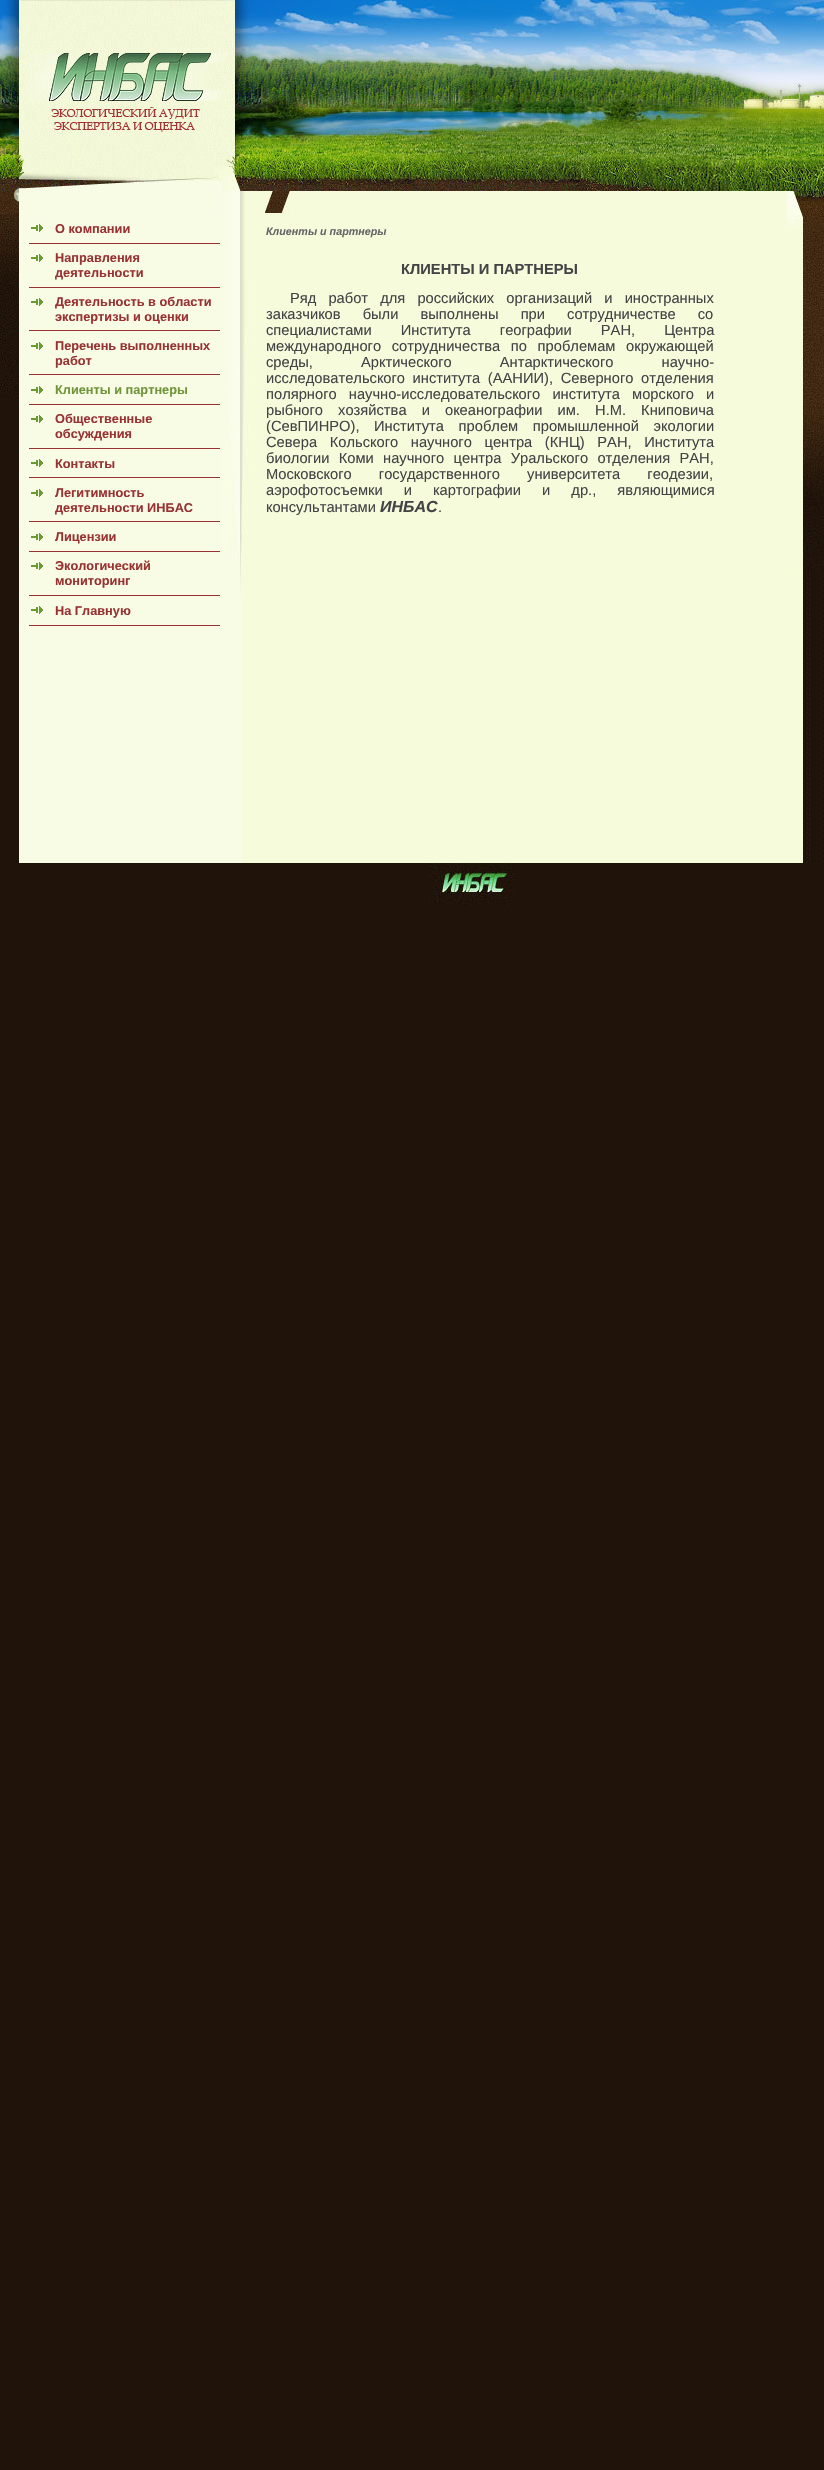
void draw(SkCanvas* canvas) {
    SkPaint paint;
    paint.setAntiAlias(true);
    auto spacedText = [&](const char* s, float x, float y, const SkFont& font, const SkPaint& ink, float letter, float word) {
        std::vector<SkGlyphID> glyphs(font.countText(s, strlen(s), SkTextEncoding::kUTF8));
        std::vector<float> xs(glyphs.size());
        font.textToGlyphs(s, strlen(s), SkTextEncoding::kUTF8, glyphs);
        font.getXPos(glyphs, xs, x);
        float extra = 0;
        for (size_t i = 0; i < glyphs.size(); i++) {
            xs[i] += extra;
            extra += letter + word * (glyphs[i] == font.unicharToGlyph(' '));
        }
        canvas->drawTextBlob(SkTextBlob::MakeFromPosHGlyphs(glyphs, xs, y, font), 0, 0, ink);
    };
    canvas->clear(0xFF20130A);
    paint.setColor(0xFFF8FCE5);
    canvas->drawRect(SkRect::MakeXYWH(19, 214, 222, 649), paint);
    canvas->drawImageRect(SkImages::DeferredFromEncodedData(SkData::MakeFromFileName("img1.png")), SkRect::MakeXYWH(0, 214, 19, 649), SkSamplingOptions());
    canvas->drawImageRect(SkImages::DeferredFromEncodedData(SkData::MakeFromFileName("img2.png")), SkRect::MakeXYWH(0, 0, 222, 214), SkSamplingOptions());
    canvas->drawImageRect(SkImages::DeferredFromEncodedData(SkData::MakeFromFileName("img3.png")), SkRect::MakeXYWH(222, 0, 19, 593), SkSamplingOptions());
    paint.setColor(0xFF993233);
    canvas->drawRect(SkRect::MakeXYWH(29, 243, 191, 1), paint);
    canvas->drawImageRect(SkImages::DeferredFromEncodedData(SkData::MakeFromFileName("img4.png")), SkRect::MakeXYWH(31, 220, 16, 14), SkSamplingOptions());
    SkFont font1(fontMgr->matchFamilyStyle("Liberation Sans", SkFontStyle::Bold()), 12.75f);
    font1.setSubpixel(true);
    canvas->drawString("О компании", 55, 233, font1, paint);
    canvas->drawRect(SkRect::MakeXYWH(29, 287, 191, 1), paint);
    canvas->drawImageRect(SkImages::DeferredFromEncodedData(SkData::MakeFromFileName("img4.png")), SkRect::MakeXYWH(31, 250, 16, 14), SkSamplingOptions());
    canvas->drawString("Направления", 55, 262, font1, paint);
    canvas->drawString("деятельности", 55, 277, font1, paint);
    canvas->drawRect(SkRect::MakeXYWH(29, 330, 191, 1), paint);
    canvas->drawImageRect(SkImages::DeferredFromEncodedData(SkData::MakeFromFileName("img4.png")), SkRect::MakeXYWH(31, 294, 16, 14), SkSamplingOptions());
    canvas->drawString("Деятельность в области", 55, 306, font1, paint);
    canvas->drawString("экспертизы и оценки", 55, 321, font1, paint);
    canvas->drawRect(SkRect::MakeXYWH(29, 374, 191, 1), paint);
    canvas->drawImageRect(SkImages::DeferredFromEncodedData(SkData::MakeFromFileName("img4.png")), SkRect::MakeXYWH(31, 338, 16, 14), SkSamplingOptions());
    canvas->drawString("Перечень выполненных", 55, 350, font1, paint);
    canvas->drawString("работ", 55, 365, font1, paint);
    canvas->drawRect(SkRect::MakeXYWH(29, 404, 191, 1), paint);
    canvas->drawImageRect(SkImages::DeferredFromEncodedData(SkData::MakeFromFileName("img4.png")), SkRect::MakeXYWH(31, 382, 16, 14), SkSamplingOptions());
    paint.setColor(0xFF70943A);
    canvas->drawString("Клиенты и партнеры", 55, 394, font1, paint);
    paint.setColor(0xFF993233);
    canvas->drawRect(SkRect::MakeXYWH(29, 448, 191, 1), paint);
    canvas->drawImageRect(SkImages::DeferredFromEncodedData(SkData::MakeFromFileName("img4.png")), SkRect::MakeXYWH(31, 411, 16, 14), SkSamplingOptions());
    canvas->drawString("Общественные", 55, 423, font1, paint);
    canvas->drawString("обсуждения", 55, 438, font1, paint);
    canvas->drawRect(SkRect::MakeXYWH(29, 477, 191, 1), paint);
    canvas->drawImageRect(SkImages::DeferredFromEncodedData(SkData::MakeFromFileName("img4.png")), SkRect::MakeXYWH(31, 455, 16, 14), SkSamplingOptions());
    canvas->drawString("Контакты", 55, 468, font1, paint);
    canvas->drawRect(SkRect::MakeXYWH(29, 521, 191, 1), paint);
    canvas->drawImageRect(SkImages::DeferredFromEncodedData(SkData::MakeFromFileName("img4.png")), SkRect::MakeXYWH(31, 485, 16, 14), SkSamplingOptions());
    canvas->drawString("Легитимность", 55, 497, font1, paint);
    canvas->drawString("деятельности ИНБАС", 55, 512, font1, paint);
    canvas->drawRect(SkRect::MakeXYWH(29, 551, 191, 1), paint);
    canvas->drawImageRect(SkImages::DeferredFromEncodedData(SkData::MakeFromFileName("img4.png")), SkRect::MakeXYWH(31, 529, 16, 14), SkSamplingOptions());
    canvas->drawString("Лицензии", 55, 541, font1, paint);
    canvas->drawRect(SkRect::MakeXYWH(29, 595, 191, 1), paint);
    canvas->drawImageRect(SkImages::DeferredFromEncodedData(SkData::MakeFromFileName("img4.png")), SkRect::MakeXYWH(31, 558, 16, 14), SkSamplingOptions());
    canvas->drawString("Экологический", 55, 570, font1, paint);
    canvas->drawString("мониторинг", 55, 585, font1, paint);
    canvas->drawRect(SkRect::MakeXYWH(29, 625, 191, 1), paint);
    canvas->drawImageRect(SkImages::DeferredFromEncodedData(SkData::MakeFromFileName("img4.png")), SkRect::MakeXYWH(31, 602, 16, 14), SkSamplingOptions());
    canvas->drawString("На Главную", 55, 615, font1, paint);
    canvas->drawImageRect(SkImages::DeferredFromEncodedData(SkData::MakeFromFileName("img5.png")), SkRect::MakeXYWH(241, 0, 583, 191), SkSamplingOptions());
    paint.setColor(0xFFF6FBDB);
    canvas->drawRect(SkRect::MakeXYWH(241, 191, 562, 672), paint);
    canvas->drawImageRect(SkImages::DeferredFromEncodedData(SkData::MakeFromFileName("img6.png")), SkRect::MakeXYWH(241, 533, 11, 18), SkSamplingOptions());
    canvas->drawImageRect(SkImages::DeferredFromEncodedData(SkData::MakeFromFileName("img7.png")), SkRect::MakeXYWH(241, 191, 55, 342), SkSamplingOptions());
    SkFont font2(fontMgr->matchFamilyStyle("Liberation Sans", SkFontStyle::BoldItalic()), 10.75f);
    font2.setSubpixel(true);
    paint.setColor(0xFF666666);
    canvas->drawString("Клиенты и партнеры", 266, 235, font2, paint);
    SkFont font3(fontMgr->matchFamilyStyle("Liberation Sans", SkFontStyle::Bold()), 14.7f);
    font3.setSubpixel(true);
    paint.setColor(0xFF444446);
    canvas->drawString("КЛИЕНТЫ И ПАРТНЕРЫ", 401, 274, font3, paint);
    SkFont font4(fontMgr->matchFamilyStyle("Liberation Sans", SkFontStyle::Normal()), 14.7f);
    font4.setSubpixel(true);
    spacedText("Ряд работ для российских организаций и иностранных", 290, 303, font4, paint, 0, 8);
    spacedText("заказчиков были выполнены при сотрудничестве со", 266, 319, font4, paint, 0, 18);
    spacedText("специалистами Института географии РАН, Центра", 266, 335, font4, paint, 0, 25);
    spacedText("международного сотрудничества по проблемам окружающей", 266, 351, font4, paint, 0, 6.5f);
    spacedText("среды, Арктического Антарктического научно-", 266, 367, font4, paint, 0, 44);
    spacedText("исследовательского института (ААНИИ), Северного отделения", 266, 383, font4, paint, 0, 3.5f);
    spacedText("полярного научно-исследовательского института морского и", 266, 399, font4, paint, 0, 8);
    spacedText("рыбного хозяйства и океанографии им. Н.М. Книповича", 266, 415, font4, paint, 0, 11);
    spacedText("(СевПИНРО), Института проблем промышленной экологии", 266, 431, font4, paint, 0, 10.5f);
    spacedText("Севера Кольского научного центра (КНЦ) РАН, Института", 266, 447, font4, paint, 0, 8.5f);
    spacedText("биологии Коми научного центра Уральского отделения РАН,", 266, 463, font4, paint, 0, 5.25f);
    spacedText("Московского государственного университета геодезии,", 266, 479, font4, paint, 0, 23);
    spacedText("аэрофотосъемки и картографии и др., являющимися", 266, 495, font4, paint, 0, 17);
    canvas->drawString("консультантами", 266, 512, font4, paint);
    SkFont font5(fontMgr->matchFamilyStyle("Liberation Sans", SkFontStyle::BoldItalic()), 16);
    font5.setSubpixel(true);
    canvas->drawString("ИНБАС", 380, 512, font5, paint);
    canvas->drawString(".", 438, 512, font4, paint);
    canvas->drawImageRect(SkImages::DeferredFromEncodedData(SkData::MakeFromFileName("img8.png")), SkRect::MakeXYWH(803, 573, 21, 290), SkSamplingOptions());
    canvas->drawImageRect(SkImages::DeferredFromEncodedData(SkData::MakeFromFileName("img9.png")), SkRect::MakeXYWH(787, 191, 37, 382), SkSamplingOptions());
    canvas->drawImageRect(SkImages::DeferredFromEncodedData(SkData::MakeFromFileName("img10.png")), SkRect::MakeXYWH(429, 863, 85, 42), SkSamplingOptions());
}
